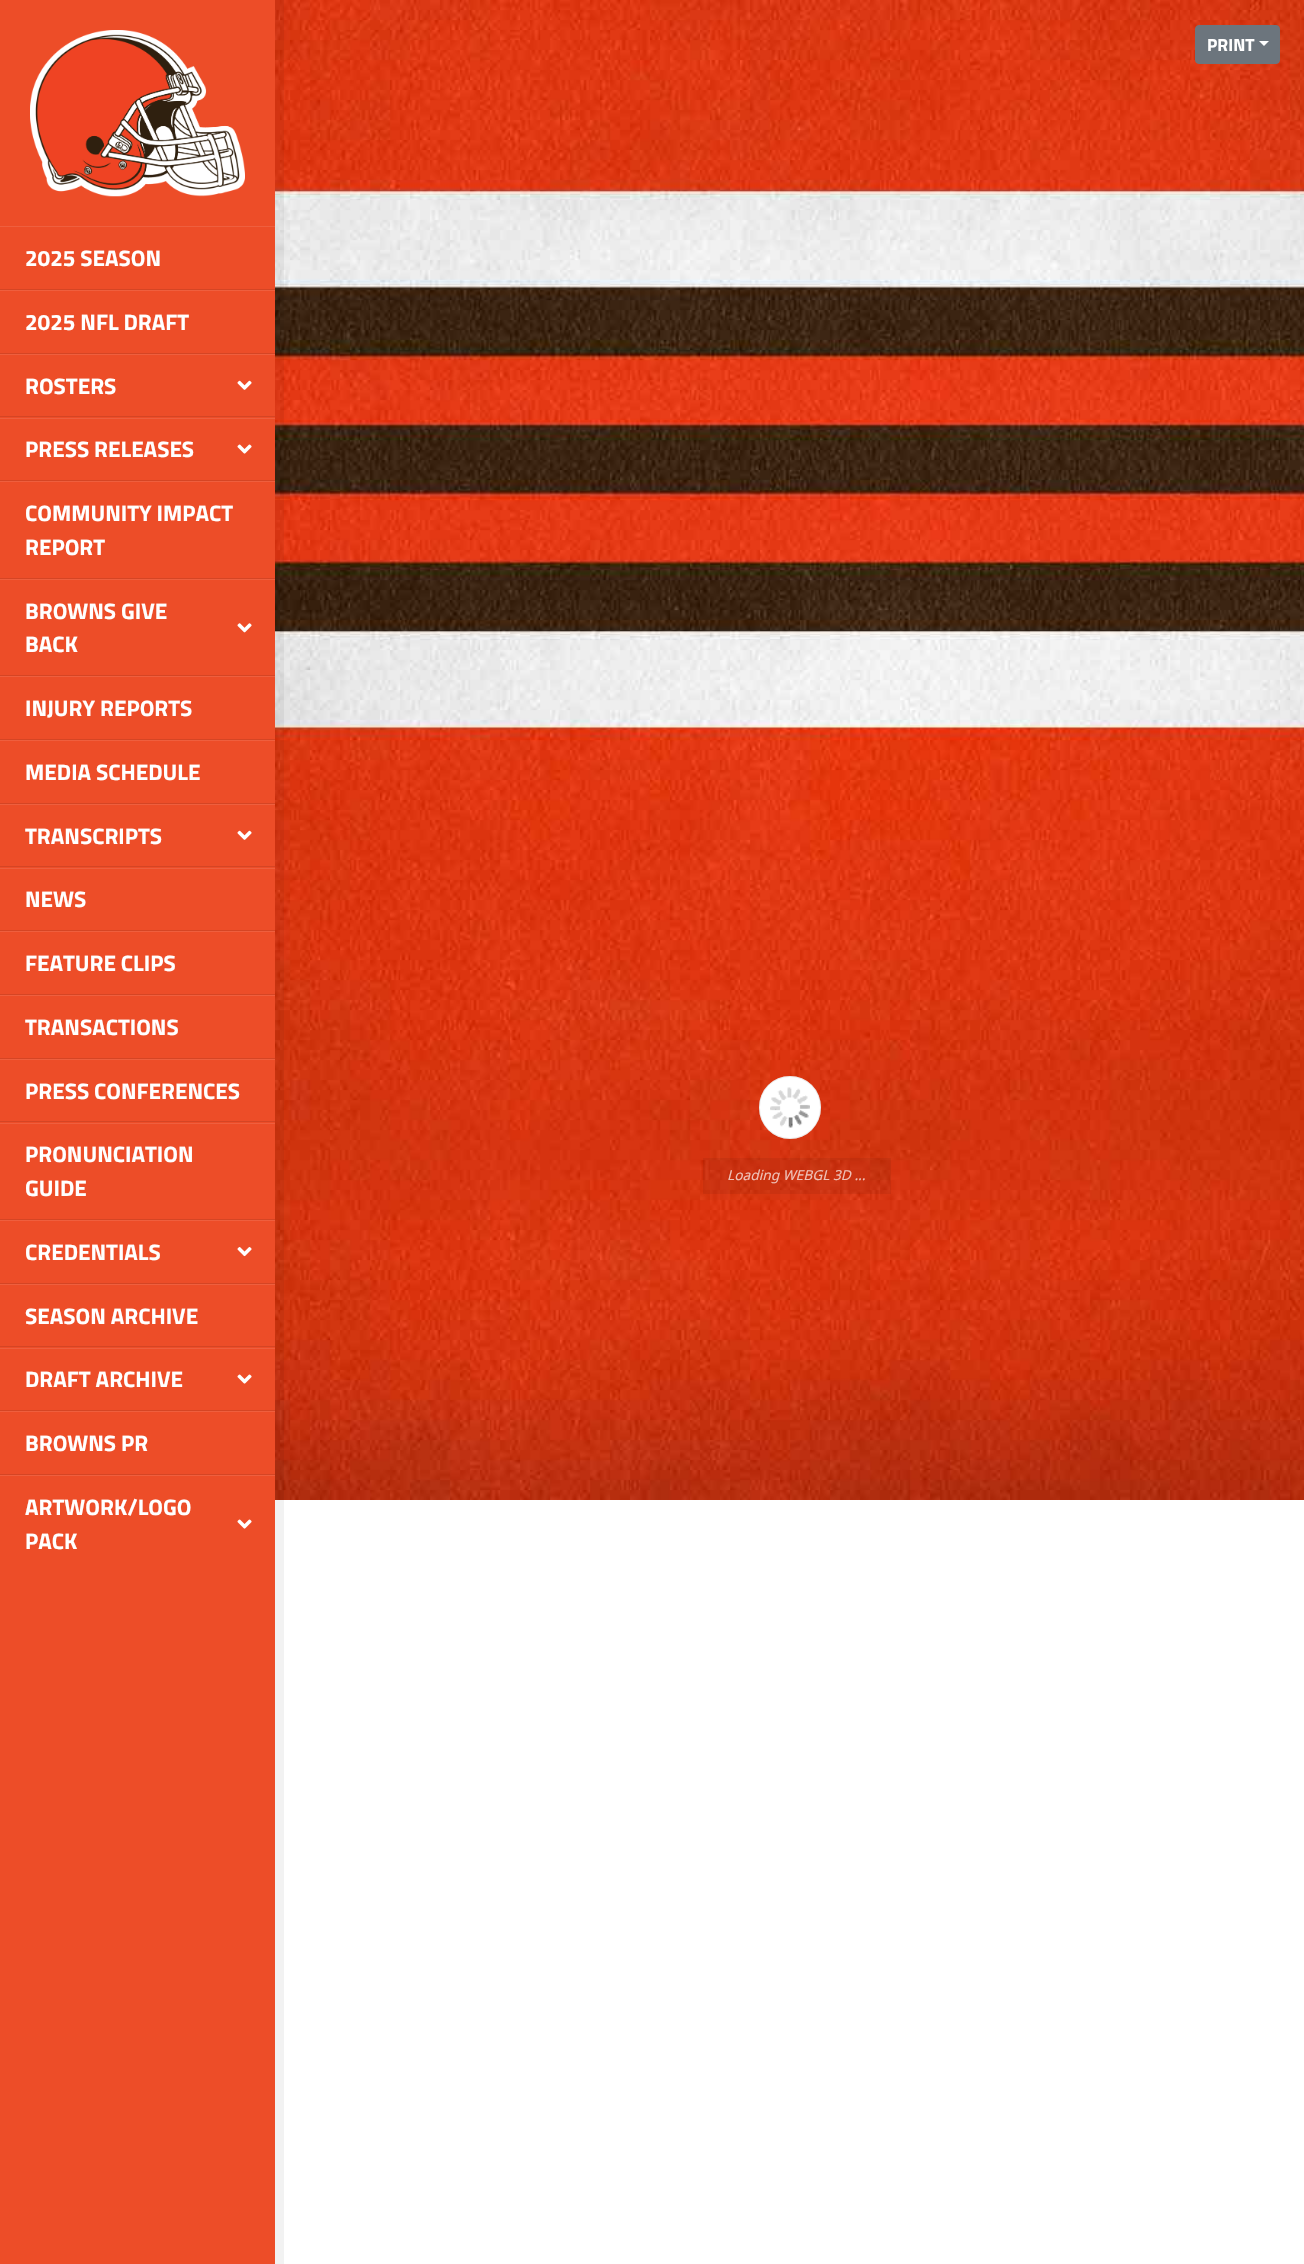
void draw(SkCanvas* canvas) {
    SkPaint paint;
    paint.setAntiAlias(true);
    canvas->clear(0xFFFFFFFF);
    canvas->drawImageRect(SkImages::DeferredFromEncodedData(SkData::MakeFromFileName("img6.png")), SkRect::MakeXYWH(275, 0, 1029, 1500), SkSamplingOptions());
    paint.setColor(0xFF6C757D);
    canvas->drawRoundRect(SkRect::MakeXYWH(1195.5f, 25.5f, 84, 38), 3.5f, 3.5f, paint);
    paint.setStyle(SkPaint::kStroke_Style);
    paint.setStrokeWidth(1);
    canvas->drawRoundRect(SkRect::MakeXYWH(1195.5f, 25.5f, 84, 38), 3.5f, 3.5f, paint);
    SkFont font1(fontMgr->matchFamilyStyle("Titillium Web", SkFontStyle::Bold()), 17.5f);
    font1.setSubpixel(true);
    paint.setStyle(SkPaint::kFill_Style);
    paint.setColor(0xFFFFFFFF);
    canvas->drawString("PRINT", 1207, 51, font1, paint);
    canvas->drawPath(SkPathBuilder().moveTo(1259, 41).lineTo(1269, 41).lineTo(1264, 46).close().detach(), paint);
    paint.setStyle(SkPaint::kStroke_Style);
    paint.setStrokeWidth(9);
    paint.setColor(0x0D000000);
    canvas->drawRect(SkRect::MakeXYWH(-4.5f, -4.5f, 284, 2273), paint);
    paint.setStyle(SkPaint::kFill_Style);
    paint.setColor(0xFFED4D28);
    canvas->drawRect(SkRect::MakeXYWH(0, 0, 275, 2264), paint);
    canvas->drawImageRect(SkImages::DeferredFromEncodedData(SkData::MakeFromFileName("img1.png")), SkRect::MakeXYWH(30, 30, 215, 167), SkSamplingOptions());
    paint.setColor(0xFFEF5F3E);
    canvas->drawRect(SkRect::MakeXYWH(0, 226, 275, 1), paint);
    SkFont font2(fontMgr->matchFamilyStyle("Titillium Web", SkFontStyle::Bold()), 22.5f);
    font2.setSubpixel(true);
    paint.setColor(0xFFFFFFFF);
    canvas->drawString("2025 SEASON", 25, 266, font2, paint);
    paint.setColor(0xFFD54524);
    canvas->drawRect(SkRect::MakeXYWH(0, 289, 275, 1), paint);
    paint.setColor(0xFFEF5F3E);
    canvas->drawRect(SkRect::MakeXYWH(0, 290, 275, 1), paint);
    paint.setColor(0xFFFFFFFF);
    canvas->drawString("2025 NFL DRAFT", 25, 330, font2, paint);
    paint.setColor(0xFFD54524);
    canvas->drawRect(SkRect::MakeXYWH(0, 353, 275, 1), paint);
    paint.setColor(0xFFEF5F3E);
    canvas->drawRect(SkRect::MakeXYWH(0, 354, 275, 1), paint);
    paint.setColor(0xFFFFFFFF);
    canvas->drawString("ROSTERS", 25, 394, font2, paint);
    canvas->drawImageRect(SkImages::DeferredFromEncodedData(SkData::MakeFromFileName("img2.png")), SkRect::MakeXYWH(237, 380, 15, 10), SkSamplingOptions());
    paint.setColor(0xFFD54524);
    canvas->drawRect(SkRect::MakeXYWH(0, 416, 275, 1), paint);
    paint.setColor(0xFFEF5F3E);
    canvas->drawRect(SkRect::MakeXYWH(0, 418, 275, 1), paint);
    paint.setColor(0xFFFFFFFF);
    canvas->drawString("PRESS RELEASES", 25, 457, font2, paint);
    canvas->drawImageRect(SkImages::DeferredFromEncodedData(SkData::MakeFromFileName("img3.png")), SkRect::MakeXYWH(237, 444, 15, 10), SkSamplingOptions());
    paint.setColor(0xFFD54524);
    canvas->drawRect(SkRect::MakeXYWH(0, 480, 275, 1), paint);
    paint.setColor(0xFFEF5F3E);
    canvas->drawRect(SkRect::MakeXYWH(0, 481, 275, 1), paint);
    paint.setColor(0xFFFFFFFF);
    canvas->drawString("COMMUNITY IMPACT", 25, 521, font2, paint);
    canvas->drawString("REPORT", 25, 555, font2, paint);
    paint.setColor(0xFFD54524);
    canvas->drawRect(SkRect::MakeXYWH(0, 578, 275, 1), paint);
    paint.setColor(0xFFEF5F3E);
    canvas->drawRect(SkRect::MakeXYWH(0, 579, 275, 1), paint);
    paint.setColor(0xFFFFFFFF);
    canvas->drawString("BROWNS GIVE", 25, 619, font2, paint);
    canvas->drawImageRect(SkImages::DeferredFromEncodedData(SkData::MakeFromFileName("img4.png")), SkRect::MakeXYWH(237, 623, 15, 10), SkSamplingOptions());
    canvas->drawString("BACK", 25, 652, font2, paint);
    paint.setColor(0xFFD54524);
    canvas->drawRect(SkRect::MakeXYWH(0, 675, 275, 1), paint);
    paint.setColor(0xFFEF5F3E);
    canvas->drawRect(SkRect::MakeXYWH(0, 676, 275, 1), paint);
    paint.setColor(0xFFFFFFFF);
    canvas->drawString("INJURY REPORTS", 25, 716, font2, paint);
    paint.setColor(0xFFD54524);
    canvas->drawRect(SkRect::MakeXYWH(0, 739, 275, 1), paint);
    paint.setColor(0xFFEF5F3E);
    canvas->drawRect(SkRect::MakeXYWH(0, 740, 275, 1), paint);
    paint.setColor(0xFFFFFFFF);
    canvas->drawString("MEDIA SCHEDULE", 25, 780, font2, paint);
    paint.setColor(0xFFD54524);
    canvas->drawRect(SkRect::MakeXYWH(0, 803, 275, 1), paint);
    paint.setColor(0xFFEF5F3E);
    canvas->drawRect(SkRect::MakeXYWH(0, 804, 275, 1), paint);
    paint.setColor(0xFFFFFFFF);
    canvas->drawString("TRANSCRIPTS", 25, 844, font2, paint);
    canvas->drawImageRect(SkImages::DeferredFromEncodedData(SkData::MakeFromFileName("img2.png")), SkRect::MakeXYWH(237, 830, 15, 10), SkSamplingOptions());
    paint.setColor(0xFFD54524);
    canvas->drawRect(SkRect::MakeXYWH(0, 866, 275, 1), paint);
    paint.setColor(0xFFEF5F3E);
    canvas->drawRect(SkRect::MakeXYWH(0, 868, 275, 1), paint);
    paint.setColor(0xFFFFFFFF);
    canvas->drawString("NEWS", 25, 907, font2, paint);
    paint.setColor(0xFFD54524);
    canvas->drawRect(SkRect::MakeXYWH(0, 930, 275, 1), paint);
    paint.setColor(0xFFEF5F3E);
    canvas->drawRect(SkRect::MakeXYWH(0, 931, 275, 1), paint);
    paint.setColor(0xFFFFFFFF);
    canvas->drawString("FEATURE CLIPS", 25, 971, font2, paint);
    paint.setColor(0xFFD54524);
    canvas->drawRect(SkRect::MakeXYWH(0, 994, 275, 1), paint);
    paint.setColor(0xFFEF5F3E);
    canvas->drawRect(SkRect::MakeXYWH(0, 995, 275, 1), paint);
    paint.setColor(0xFFFFFFFF);
    canvas->drawString("TRANSACTIONS", 25, 1035, font2, paint);
    paint.setColor(0xFFD54524);
    canvas->drawRect(SkRect::MakeXYWH(0, 1058, 275, 1), paint);
    paint.setColor(0xFFEF5F3E);
    canvas->drawRect(SkRect::MakeXYWH(0, 1059, 275, 1), paint);
    paint.setColor(0xFFFFFFFF);
    canvas->drawString("PRESS CONFERENCES", 25, 1099, font2, paint);
    paint.setColor(0xFFD54524);
    canvas->drawRect(SkRect::MakeXYWH(0, 1121, 275, 1), paint);
    paint.setColor(0xFFEF5F3E);
    canvas->drawRect(SkRect::MakeXYWH(0, 1123, 275, 1), paint);
    paint.setColor(0xFFFFFFFF);
    canvas->drawString("PRONUNCIATION", 25, 1162, font2, paint);
    canvas->drawString("GUIDE", 25, 1196, font2, paint);
    paint.setColor(0xFFD54524);
    canvas->drawRect(SkRect::MakeXYWH(0, 1219, 275, 1), paint);
    paint.setColor(0xFFEF5F3E);
    canvas->drawRect(SkRect::MakeXYWH(0, 1220, 275, 1), paint);
    paint.setColor(0xFFFFFFFF);
    canvas->drawString("CREDENTIALS", 25, 1260, font2, paint);
    canvas->drawImageRect(SkImages::DeferredFromEncodedData(SkData::MakeFromFileName("img5.png")), SkRect::MakeXYWH(237, 1247, 15, 10), SkSamplingOptions());
    paint.setColor(0xFFD54524);
    canvas->drawRect(SkRect::MakeXYWH(0, 1283, 275, 1), paint);
    paint.setColor(0xFFEF5F3E);
    canvas->drawRect(SkRect::MakeXYWH(0, 1284, 275, 1), paint);
    paint.setColor(0xFFFFFFFF);
    canvas->drawString("SEASON ARCHIVE", 25, 1324, font2, paint);
    paint.setColor(0xFFD54524);
    canvas->drawRect(SkRect::MakeXYWH(0, 1346, 275, 1), paint);
    paint.setColor(0xFFEF5F3E);
    canvas->drawRect(SkRect::MakeXYWH(0, 1348, 275, 1), paint);
    paint.setColor(0xFFFFFFFF);
    canvas->drawString("DRAFT ARCHIVE", 25, 1387, font2, paint);
    canvas->drawImageRect(SkImages::DeferredFromEncodedData(SkData::MakeFromFileName("img3.png")), SkRect::MakeXYWH(237, 1374, 15, 10), SkSamplingOptions());
    paint.setColor(0xFFD54524);
    canvas->drawRect(SkRect::MakeXYWH(0, 1410, 275, 1), paint);
    paint.setColor(0xFFEF5F3E);
    canvas->drawRect(SkRect::MakeXYWH(0, 1411, 275, 1), paint);
    paint.setColor(0xFFFFFFFF);
    canvas->drawString("BROWNS PR", 25, 1451, font2, paint);
    paint.setColor(0xFFD54524);
    canvas->drawRect(SkRect::MakeXYWH(0, 1474, 275, 1), paint);
    paint.setColor(0xFFEF5F3E);
    canvas->drawRect(SkRect::MakeXYWH(0, 1475, 275, 1), paint);
    paint.setColor(0xFFFFFFFF);
    canvas->drawString("ARTWORK/LOGO", 25, 1515, font2, paint);
    canvas->drawImageRect(SkImages::DeferredFromEncodedData(SkData::MakeFromFileName("img3.png")), SkRect::MakeXYWH(237, 1519, 15, 10), SkSamplingOptions());
    canvas->drawString("PACK", 25, 1549, font2, paint);
    canvas->drawRoundRect(SkRect::MakeXYWH(759, 1076, 62, 63), 31, 31, paint);
    paint.setStyle(SkPaint::kStroke_Style);
    paint.setStrokeWidth(1);
    paint.setColor(0x33969696);
    canvas->drawRoundRect(SkRect::MakeXYWH(759.5f, 1076.5f, 61, 62), 30.5f, 30.5f, paint);
    canvas->drawImageRect(SkImages::DeferredFromEncodedData(SkData::MakeFromFileName("img7.png")), SkRect::MakeXYWH(770, 1087, 40, 41), SkSamplingOptions());
    paint.setStyle(SkPaint::kFill_Style);
    paint.setColor(0x0F000000);
    canvas->drawRect(SkRect::MakeXYWH(703, 1158, 188, 36), paint);
    SkFont font3(fontMgr->matchFamilyStyle("Noto Sans", SkFontStyle::Italic()), 13.75f);
    font3.setSubpixel(true);
    paint.setColor(0xFFEFC1B7);
    canvas->drawString("Loading WEBGL 3D ...", 727, 1180, font3, paint);
}
